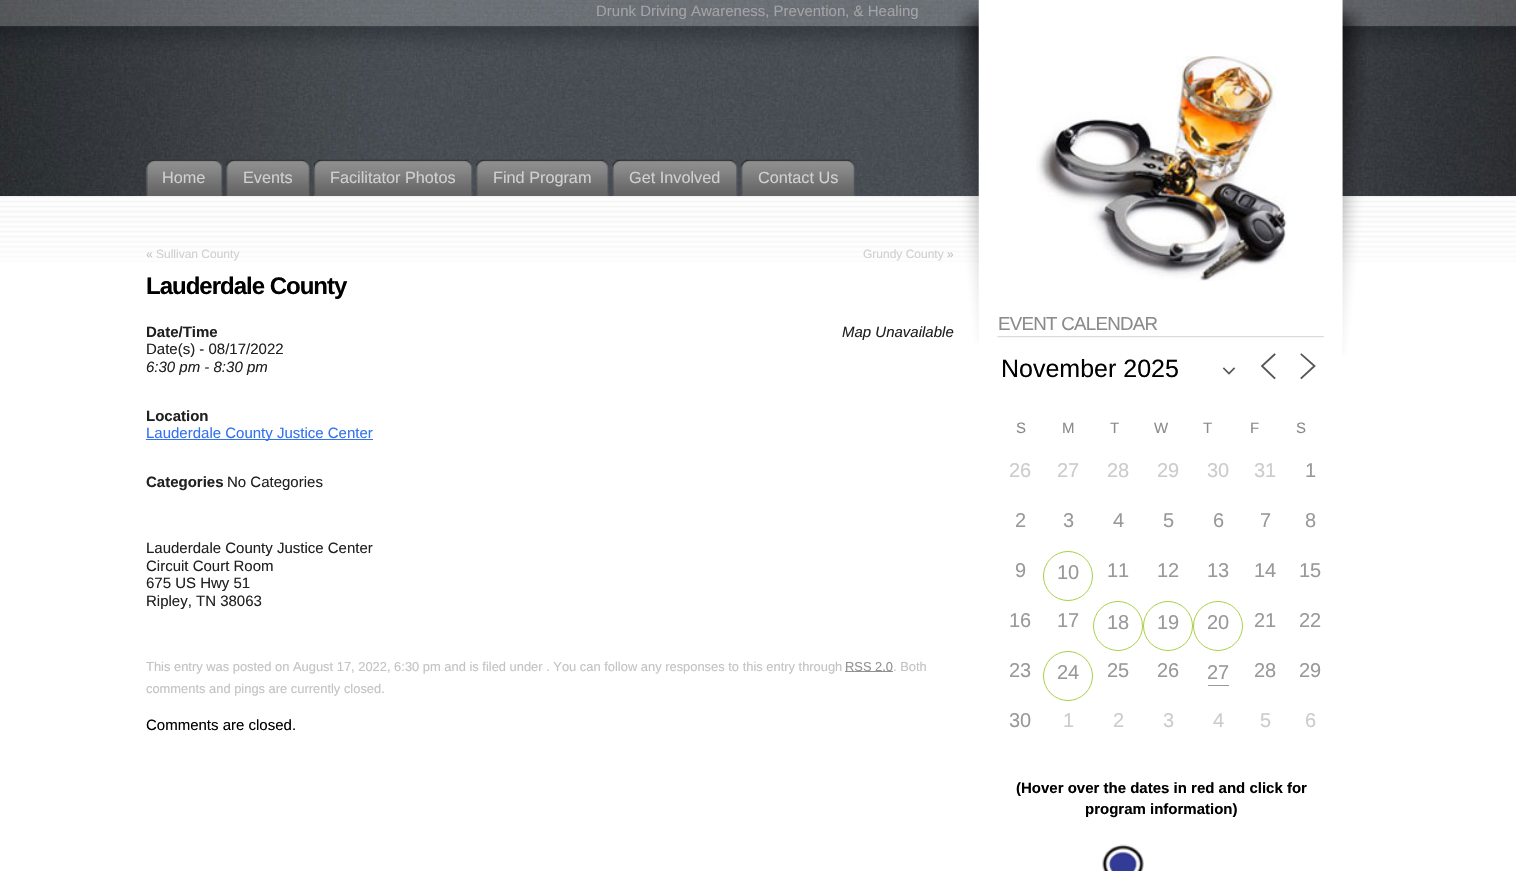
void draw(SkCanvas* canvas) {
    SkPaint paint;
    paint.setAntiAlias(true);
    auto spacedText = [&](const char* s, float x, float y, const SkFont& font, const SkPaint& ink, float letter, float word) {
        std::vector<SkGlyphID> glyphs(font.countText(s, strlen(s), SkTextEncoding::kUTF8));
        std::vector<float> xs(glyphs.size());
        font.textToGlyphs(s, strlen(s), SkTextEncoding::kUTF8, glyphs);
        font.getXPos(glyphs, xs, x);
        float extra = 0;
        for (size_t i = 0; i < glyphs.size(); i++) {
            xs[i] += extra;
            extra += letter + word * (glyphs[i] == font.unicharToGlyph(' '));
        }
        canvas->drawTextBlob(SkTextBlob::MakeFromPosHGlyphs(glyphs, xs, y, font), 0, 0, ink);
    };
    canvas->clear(0xFFFFFFFF);
    canvas->drawImageRect(SkImages::DeferredFromEncodedData(SkData::MakeFromFileName("img1.png")), SkRect::MakeXYWH(0, 196, 1516, 66), SkSamplingOptions());
    canvas->drawImageRect(SkImages::DeferredFromEncodedData(SkData::MakeFromFileName("img2.png")), SkRect::MakeXYWH(0, 0, 1516, 196), SkSamplingOptions());
    SkFont font1(fontMgr->matchFamilyStyle("Liberation Sans", SkFontStyle::Normal()), 15);
    font1.setSubpixel(true);
    paint.setColor(0xFFA2A3A6);
    canvas->drawString("Drunk Driving Awareness, Prevention, & Healing", 596, 16, font1, paint);
    canvas->drawImageRect(SkImages::DeferredFromEncodedData(SkData::MakeFromFileName("img3.png")), SkRect::MakeXYWH(146, 159, 14, 37), SkSamplingOptions());
    canvas->drawImageRect(SkImages::DeferredFromEncodedData(SkData::MakeFromFileName("img4.png")), SkRect::MakeXYWH(160, 159, 63, 37), SkSamplingOptions());
    SkFont font2(fontMgr->matchFamilyStyle("Liberation Sans", SkFontStyle::Normal()), 16.25f);
    font2.setSubpixel(true);
    paint.setColor(0xFFD2D0CF);
    canvas->drawString("Home", 162, 183, font2, paint);
    canvas->drawImageRect(SkImages::DeferredFromEncodedData(SkData::MakeFromFileName("img5.png")), SkRect::MakeXYWH(226, 159, 13, 37), SkSamplingOptions());
    canvas->drawImageRect(SkImages::DeferredFromEncodedData(SkData::MakeFromFileName("img6.png")), SkRect::MakeXYWH(238, 159, 72, 37), SkSamplingOptions());
    canvas->drawString("Events", 243, 183, font2, paint);
    canvas->drawImageRect(SkImages::DeferredFromEncodedData(SkData::MakeFromFileName("img7.png")), SkRect::MakeXYWH(313, 159, 14, 37), SkSamplingOptions());
    canvas->drawImageRect(SkImages::DeferredFromEncodedData(SkData::MakeFromFileName("img8.png")), SkRect::MakeXYWH(325, 159, 148, 37), SkSamplingOptions());
    canvas->drawString("Facilitator Photos", 330, 183, font2, paint);
    canvas->drawImageRect(SkImages::DeferredFromEncodedData(SkData::MakeFromFileName("img9.png")), SkRect::MakeXYWH(476, 159, 13, 37), SkSamplingOptions());
    canvas->drawImageRect(SkImages::DeferredFromEncodedData(SkData::MakeFromFileName("img10.png")), SkRect::MakeXYWH(488, 159, 121, 37), SkSamplingOptions());
    canvas->drawString("Find Program", 493, 183, font2, paint);
    canvas->drawImageRect(SkImages::DeferredFromEncodedData(SkData::MakeFromFileName("img11.png")), SkRect::MakeXYWH(612, 159, 13, 37), SkSamplingOptions());
    canvas->drawImageRect(SkImages::DeferredFromEncodedData(SkData::MakeFromFileName("img12.png")), SkRect::MakeXYWH(624, 159, 114, 37), SkSamplingOptions());
    canvas->drawString("Get Involved", 629, 183, font2, paint);
    canvas->drawImageRect(SkImages::DeferredFromEncodedData(SkData::MakeFromFileName("img13.png")), SkRect::MakeXYWH(741, 159, 13, 37), SkSamplingOptions());
    canvas->drawImageRect(SkImages::DeferredFromEncodedData(SkData::MakeFromFileName("img14.png")), SkRect::MakeXYWH(753, 159, 102, 37), SkSamplingOptions());
    canvas->drawString("Contact Us", 758, 183, font2, paint);
    SkFont font3(fontMgr->matchFamilyStyle("Liberation Sans", SkFontStyle::Normal()), 12);
    font3.setSubpixel(true);
    paint.setColor(0xFFC4C3C1);
    canvas->drawString("«", 146, 258, font3, paint);
    paint.setColor(0xFFD2D0CF);
    canvas->drawString("Sullivan County", 156, 258, font3, paint);
    canvas->drawString("Grundy County", 863, 258, font3, paint);
    paint.setColor(0xFFC4C3C1);
    canvas->drawString("»", 947, 258, font3, paint);
    SkFont font4(fontMgr->matchFamilyStyle("Liberation Sans", SkFontStyle::Bold()), 24);
    font4.setSubpixel(true);
    paint.setColor(0xFF000000);
    spacedText("Lauderdale County", 146, 294, font4, paint, -1, 0);
    SkFont font5(fontMgr->matchFamilyStyle("Liberation Sans", SkFontStyle::Bold()), 15);
    font5.setSubpixel(true);
    paint.setColor(0xFF212121);
    canvas->drawString("Date/Time", 146, 337, font5, paint);
    canvas->drawString("Date(s) - 08/17/2022", 146, 354, font1, paint);
    SkFont font6(fontMgr->matchFamilyStyle("Liberation Sans", SkFontStyle::Italic()), 15);
    font6.setSubpixel(true);
    canvas->drawString("6:30 pm - 8:30 pm", 146, 372, font6, paint);
    canvas->drawString("Map Unavailable", 842, 337, font6, paint);
    canvas->drawString("Location", 146, 421, font5, paint);
    paint.setColor(0xFF3372F0);
    canvas->drawRect(SkRect::MakeXYWH(146, 439, 227, 1), paint);
    canvas->drawString("Lauderdale County Justice Center", 146, 438, font1, paint);
    paint.setColor(0xFF212121);
    canvas->drawString("Categories", 146, 487, font5, paint);
    canvas->drawString("No Categories", 227, 487, font1, paint);
    canvas->drawString("Lauderdale County Justice Center", 146, 553, font1, paint);
    canvas->drawString("Circuit Court Room", 146, 571, font1, paint);
    canvas->drawString("675 US Hwy 51", 146, 588, font1, paint);
    canvas->drawString("Ripley, TN 38063", 146, 606, font1, paint);
    SkFont font7(fontMgr->matchFamilyStyle("Liberation Sans", SkFontStyle::Normal()), 12.9f);
    font7.setSubpixel(true);
    paint.setColor(0xFFC4C3C1);
    canvas->drawString("This entry was posted on August 17, 2022, 6:30 pm and is filed under . You can follow any responses to this entry through", 146, 671, font7, paint);
    paint.setColor(0xFF929292);
    canvas->drawRect(SkRect::MakeXYWH(845, 671, 48, 1), paint);
    canvas->drawString("RSS 2.0", 845, 671, font7, paint);
    paint.setColor(0xFFC4C3C1);
    canvas->drawString(". Both", 893, 671, font7, paint);
    canvas->drawString("comments and pings are currently closed.", 146, 693, font7, paint);
    paint.setColor(0xFF000000);
    canvas->drawString("Comments are closed.", 146, 730, font1, paint);
    canvas->drawImageRect(SkImages::DeferredFromEncodedData(SkData::MakeFromFileName("img15.png")), SkRect::MakeXYWH(955, 0, 38, 343), SkSamplingOptions());
    canvas->drawImageRect(SkImages::DeferredFromEncodedData(SkData::MakeFromFileName("img16.png")), SkRect::MakeXYWH(993, 0, 374, 355), SkSamplingOptions());
    canvas->drawImageRect(SkImages::DeferredFromEncodedData(SkData::MakeFromFileName("img17.png")), SkRect::MakeXYWH(1036, 56, 251, 225), SkSamplingOptions());
    canvas->drawImageRect(SkImages::DeferredFromEncodedData(SkData::MakeFromFileName("img18.png")), SkRect::MakeXYWH(997, 336, 327, 2), SkSamplingOptions());
    SkFont font8(fontMgr->matchFamilyStyle("Liberation Sans", SkFontStyle::Normal()), 18.75f);
    font8.setSubpixel(true);
    paint.setColor(0xFF8B8B89);
    spacedText("EVENT CALENDAR", 998, 330, font8, paint, -0.75f, 0);
    paint.setStyle(SkPaint::kStroke_Style);
    paint.setStrokeWidth(1.7f);
    paint.setStrokeCap(SkPaint::kSquare_Cap);
    paint.setColor(0xFF555555);
    canvas->drawPath(SkPathBuilder().moveTo(1224, 368.5f).lineTo(1229, 373.5f).lineTo(1234, 368.5f).detach(), paint);
    SkFont font9(fontMgr->matchFamilyStyle("Liberation Sans", SkFontStyle::Normal()), 25);
    font9.setSubpixel(true);
    paint.setStyle(SkPaint::kFill_Style);
    paint.setColor(0xFF000000);
    canvas->drawString("November 2025", 1001, 377, font9, paint);
    paint.setStyle(SkPaint::kStroke_Style);
    paint.setStrokeWidth(1.8f);
    paint.setColor(0xFF555555);
    canvas->drawPath(SkPathBuilder().moveTo(1274.5f, 378).lineTo(1262, 366).lineTo(1274.5f, 354.5f).moveTo(1301.5f, 378).lineTo(1314.5f, 366).lineTo(1301.5f, 354.5f).detach(), paint);
    paint.setStyle(SkPaint::kFill_Style);
    paint.setColor(0xFF8B8B89);
    canvas->drawString("S", 1016, 433, font1, paint);
    canvas->drawString("M", 1062, 433, font1, paint);
    canvas->drawString("T", 1110, 433, font1, paint);
    canvas->drawString("W", 1154, 433, font1, paint);
    canvas->drawString("T", 1203, 433, font1, paint);
    canvas->drawString("F", 1250, 433, font1, paint);
    canvas->drawString("S", 1296, 433, font1, paint);
    SkFont font10(fontMgr->matchFamilyStyle("Liberation Sans", SkFontStyle::Normal()), 20);
    font10.setSubpixel(true);
    paint.setColor(0xFFCCCCCC);
    canvas->drawString("26", 1009, 477, font10, paint);
    canvas->drawString("27", 1057, 477, font10, paint);
    canvas->drawString("28", 1107, 477, font10, paint);
    canvas->drawString("29", 1157, 477, font10, paint);
    canvas->drawString("30", 1207, 477, font10, paint);
    canvas->drawString("31", 1254, 477, font10, paint);
    paint.setColor(0xFF999999);
    canvas->drawString("1", 1305, 477, font10, paint);
    canvas->drawString("2", 1015, 527, font10, paint);
    canvas->drawString("3", 1063, 527, font10, paint);
    canvas->drawString("4", 1113, 527, font10, paint);
    canvas->drawString("5", 1163, 527, font10, paint);
    canvas->drawString("6", 1213, 527, font10, paint);
    canvas->drawString("7", 1260, 527, font10, paint);
    canvas->drawString("8", 1305, 527, font10, paint);
    canvas->drawString("9", 1015, 577, font10, paint);
    paint.setStyle(SkPaint::kStroke_Style);
    paint.setStrokeWidth(1);
    paint.setStrokeCap(SkPaint::kButt_Cap);
    paint.setColor(0xFFA8D144);
    canvas->drawCircle(1068, 576, 24.5f, paint);
    paint.setStyle(SkPaint::kFill_Style);
    paint.setColor(0xFF999999);
    canvas->drawString("10", 1057, 579, font10, paint);
    canvas->drawString("11", 1107, 577, font10, paint);
    canvas->drawString("12", 1157, 577, font10, paint);
    canvas->drawString("13", 1207, 577, font10, paint);
    canvas->drawString("14", 1254, 577, font10, paint);
    canvas->drawString("15", 1299, 577, font10, paint);
    canvas->drawString("16", 1009, 627, font10, paint);
    canvas->drawString("17", 1057, 627, font10, paint);
    paint.setStyle(SkPaint::kStroke_Style);
    paint.setColor(0xFFA8D144);
    canvas->drawCircle(1118, 626, 24.5f, paint);
    paint.setStyle(SkPaint::kFill_Style);
    paint.setColor(0xFF999999);
    canvas->drawString("18", 1107, 629, font10, paint);
    paint.setStyle(SkPaint::kStroke_Style);
    paint.setColor(0xFFA8D144);
    canvas->drawCircle(1168, 626, 24.5f, paint);
    paint.setStyle(SkPaint::kFill_Style);
    paint.setColor(0xFF999999);
    canvas->drawString("19", 1157, 629, font10, paint);
    paint.setStyle(SkPaint::kStroke_Style);
    paint.setColor(0xFFA8D144);
    canvas->drawCircle(1218, 626, 24.5f, paint);
    paint.setStyle(SkPaint::kFill_Style);
    paint.setColor(0xFF999999);
    canvas->drawString("20", 1207, 629, font10, paint);
    canvas->drawString("21", 1254, 627, font10, paint);
    canvas->drawString("22", 1299, 627, font10, paint);
    canvas->drawString("23", 1009, 677, font10, paint);
    paint.setStyle(SkPaint::kStroke_Style);
    paint.setColor(0xFFA8D144);
    canvas->drawCircle(1068, 676, 24.5f, paint);
    paint.setStyle(SkPaint::kFill_Style);
    paint.setColor(0xFF999999);
    canvas->drawString("24", 1057, 679, font10, paint);
    canvas->drawString("25", 1107, 677, font10, paint);
    canvas->drawString("26", 1157, 677, font10, paint);
    canvas->drawString("27", 1207, 679, font10, paint);
    canvas->drawRect(SkRect::MakeXYWH(1208, 685, 21, 1), paint);
    canvas->drawString("28", 1254, 677, font10, paint);
    canvas->drawString("29", 1299, 677, font10, paint);
    canvas->drawString("30", 1009, 727, font10, paint);
    paint.setColor(0xFFCCCCCC);
    canvas->drawString("1", 1063, 727, font10, paint);
    canvas->drawString("2", 1113, 727, font10, paint);
    canvas->drawString("3", 1163, 727, font10, paint);
    canvas->drawString("4", 1213, 727, font10, paint);
    canvas->drawString("5", 1260, 727, font10, paint);
    canvas->drawString("6", 1305, 727, font10, paint);
    paint.setColor(0xFF000000);
    canvas->drawString("(Hover over the dates in red and click for", 1016, 793, font5, paint);
    canvas->drawString("program information)", 1085, 814, font5, paint);
    canvas->drawImageRect(SkImages::DeferredFromEncodedData(SkData::MakeFromFileName("img19.png")), SkRect::MakeXYWH(1102, 844, 42, 27), SkSamplingOptions());
}
